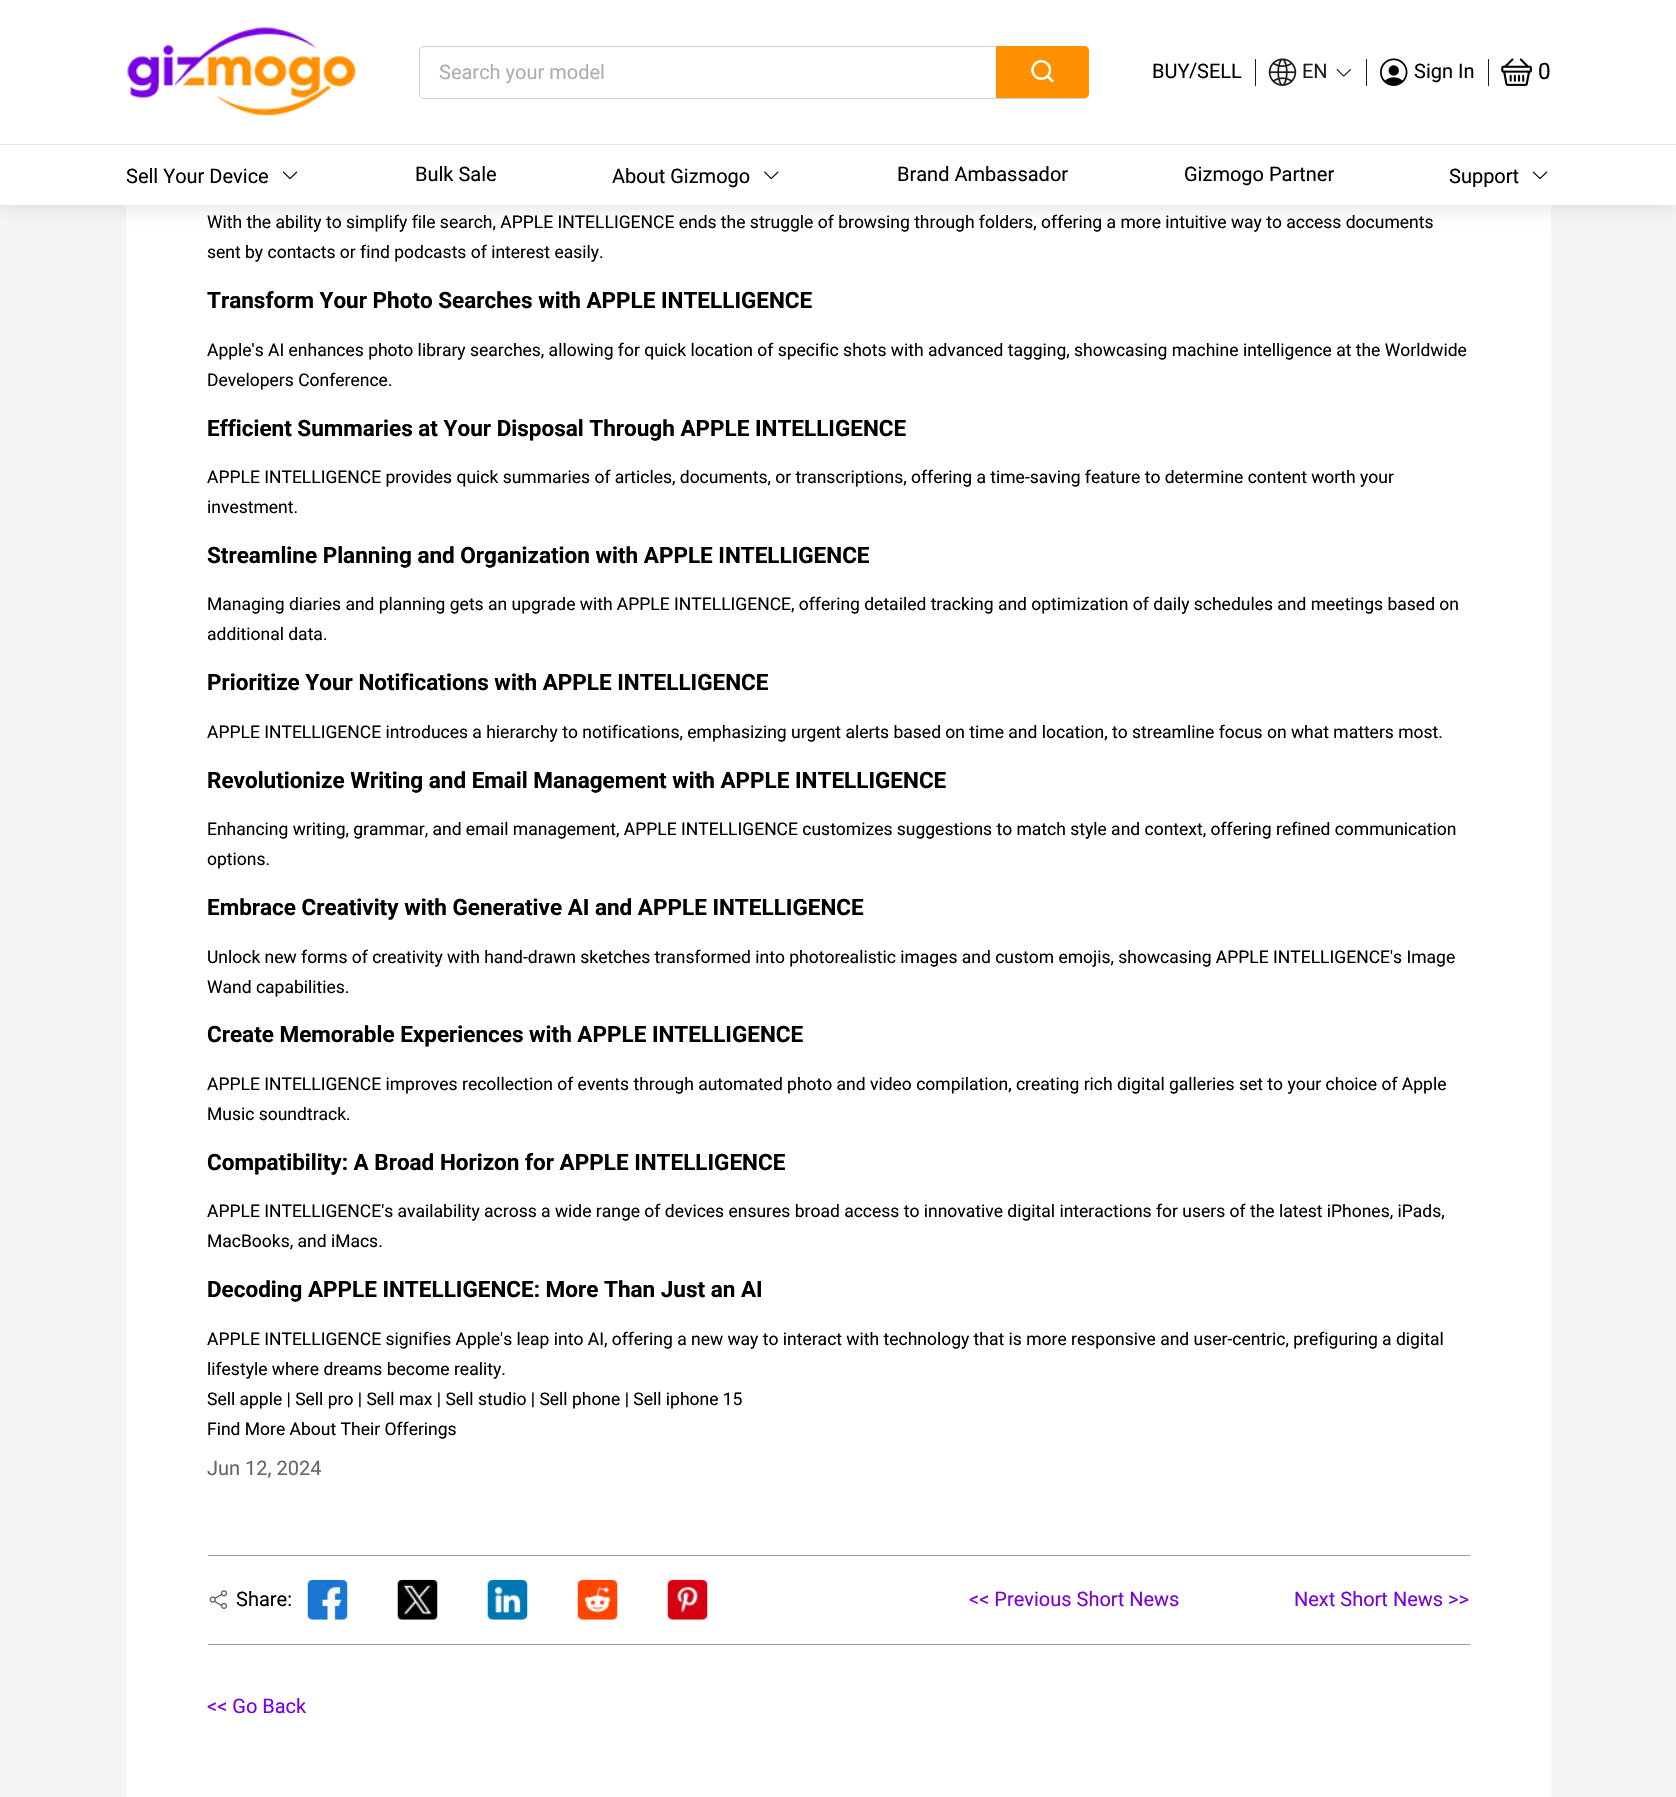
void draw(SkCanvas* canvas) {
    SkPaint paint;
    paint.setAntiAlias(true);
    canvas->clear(0xFFF5F5F5);
    paint.setColor(0xFFFFFFFF);
    canvas->drawRect(SkRect::MakeXYWH(126, 205, 1425, 1592), paint);
    paint.setColor(0x4D858585);
    paint.setMaskFilter(SkMaskFilter::MakeBlur(kNormal_SkBlurStyle, 11));
    canvas->drawRect(SkRect::MakeXYWH(0, 0, 1676, 205), paint);
    paint.setMaskFilter(nullptr);
    paint.setColor(0xFFFFFFFF);
    canvas->drawRect(SkRect::MakeXYWH(0, 0, 1676, 205), paint);
    canvas->drawImageRect(SkImages::DeferredFromEncodedData(SkData::MakeFromFileName("img1.png")), SkRect::MakeXYWH(127, 27, 229, 89), SkSamplingOptions());
    paint.setStyle(SkPaint::kStroke_Style);
    paint.setStrokeWidth(1);
    paint.setColor(0xFFCECBD4);
    canvas->drawRoundRect(SkRect::MakeXYWH(419.5f, 46.5f, 669, 52), 4.5f, 4.5f, paint);
    SkFont font1(fontMgr->matchFamilyStyle("Roboto", SkFontStyle::Normal()), 20);
    font1.setSubpixel(true);
    paint.setStyle(SkPaint::kFill_Style);
    paint.setColor(0xFFAEAEAE);
    canvas->drawString("Search your model", 439, 79, font1, paint);
    canvas->save();
    canvas->clipPath(SkPathBuilder().moveTo(424, 46).lineTo(1084, 46).cubicTo(1087, 46, 1089, 48, 1089, 51).lineTo(1089, 94).cubicTo(1089, 97, 1087, 99, 1084, 99).lineTo(424, 99).cubicTo(421, 99, 419, 97, 419, 94).lineTo(419, 51).cubicTo(419, 48, 421, 46, 424, 46).close().detach(), true);
    paint.setColor(0xFFFF9100);
    canvas->drawPath(SkPathBuilder().moveTo(996, 45).lineTo(1084, 45).cubicTo(1087, 45, 1089, 47, 1089, 50).lineTo(1089, 93).cubicTo(1089, 96, 1087, 98, 1084, 98).lineTo(996, 98).close().detach(), paint);
    canvas->restore();
    canvas->drawImageRect(SkImages::DeferredFromEncodedData(SkData::MakeFromFileName("img2.png")), SkRect::MakeXYWH(1031, 60, 23, 22), SkSamplingOptions());
    paint.setColor(0xFF000000);
    canvas->drawString("BUY", 1152, 78, font1, paint);
    canvas->drawString("/", 1189, 77, font1, paint);
    canvas->drawString("SELL", 1197, 78, font1, paint);
    paint.setColor(0xFF1D1D1F);
    canvas->drawRect(SkRect::MakeXYWH(1255, 59, 1, 27), paint);
    canvas->drawImageRect(SkImages::DeferredFromEncodedData(SkData::MakeFromFileName("img3.png")), SkRect::MakeXYWH(1268, 58, 29, 28), SkSamplingOptions());
    canvas->drawString("EN", 1302, 78, font1, paint);
    canvas->drawImageRect(SkImages::DeferredFromEncodedData(SkData::MakeFromFileName("img4.png")), SkRect::MakeXYWH(1336, 69, 15, 8), SkSamplingOptions());
    canvas->drawRect(SkRect::MakeXYWH(1366, 59, 1, 27), paint);
    canvas->drawImageRect(SkImages::DeferredFromEncodedData(SkData::MakeFromFileName("img5.png")), SkRect::MakeXYWH(1380, 58, 28, 28), SkSamplingOptions());
    paint.setColor(0xFF000000);
    canvas->drawString("Sign In", 1414, 78, font1, paint);
    paint.setColor(0xFF1D1D1F);
    canvas->drawRect(SkRect::MakeXYWH(1488, 59, 1, 27), paint);
    canvas->drawImageRect(SkImages::DeferredFromEncodedData(SkData::MakeFromFileName("img6.png")), SkRect::MakeXYWH(1501, 58, 31, 28), SkSamplingOptions());
    SkFont font2(fontMgr->matchFamilyStyle("Roboto", SkFontStyle::Normal()), 22.5f);
    font2.setSubpixel(true);
    paint.setColor(0xFF000000);
    canvas->drawString("0", 1538, 79, font2, paint);
    paint.setColor(0xFFE8E8E8);
    canvas->drawRect(SkRect::MakeXYWH(0, 144, 1676, 1), paint);
    paint.setColor(0xFF000000);
    canvas->drawString("Sell Your Device", 126, 183, font1, paint);
    canvas->drawImageRect(SkImages::DeferredFromEncodedData(SkData::MakeFromFileName("img7.png")), SkRect::MakeXYWH(282, 171, 16, 8), SkSamplingOptions());
    canvas->drawString("Bulk Sale", 415, 181, font1, paint);
    canvas->drawString("About Gizmogo", 612, 183, font1, paint);
    canvas->drawImageRect(SkImages::DeferredFromEncodedData(SkData::MakeFromFileName("img8.png")), SkRect::MakeXYWH(764, 171, 15, 9), SkSamplingOptions());
    canvas->drawString("Brand Ambassador", 897, 181, font1, paint);
    canvas->drawString("Gizmogo Partner", 1184, 181, font1, paint);
    canvas->drawString("Support", 1449, 183, font1, paint);
    canvas->drawImageRect(SkImages::DeferredFromEncodedData(SkData::MakeFromFileName("img7.png")), SkRect::MakeXYWH(1532, 171, 16, 8), SkSamplingOptions());
    SkFont font3(fontMgr->matchFamilyStyle("Roboto", SkFontStyle::Normal()), 17.5f);
    font3.setSubpixel(true);
    canvas->drawString("With the ability to simplify file search, APPLE INTELLIGENCE ends the struggle of browsing through folders, offering a more intuitive way to access documents", 207, 228, font3, paint);
    canvas->drawString("sent by contacts or find podcasts of interest easily.", 207, 258, font3, paint);
    SkFont font4(fontMgr->matchFamilyStyle("Roboto", SkFontStyle::Bold()), 22.5f);
    font4.setSubpixel(true);
    canvas->drawString("Transform Your Photo Searches with APPLE INTELLIGENCE", 207, 308, font4, paint);
    canvas->drawString("Apple's AI enhances photo library searches, allowing for quick location of specific shots with advanced tagging, showcasing machine intelligence at the Worldwide", 207, 356, font3, paint);
    canvas->drawString("Developers Conference.", 207, 386, font3, paint);
    canvas->drawString("Efficient Summaries at Your Disposal Through APPLE INTELLIGENCE", 207, 436, font4, paint);
    canvas->drawString("APPLE INTELLIGENCE provides quick summaries of articles, documents, or transcriptions, offering a time-saving feature to determine content worth your", 207, 483, font3, paint);
    canvas->drawString("investment.", 207, 513, font3, paint);
    canvas->drawString("Streamline Planning and Organization with APPLE INTELLIGENCE", 207, 563, font4, paint);
    canvas->drawString("Managing diaries and planning gets an upgrade with APPLE INTELLIGENCE, offering detailed tracking and optimization of daily schedules and meetings based on", 207, 610, font3, paint);
    canvas->drawString("additional data.", 207, 640, font3, paint);
    canvas->drawString("Prioritize Your Notifications with APPLE INTELLIGENCE", 207, 690, font4, paint);
    canvas->drawString("APPLE INTELLIGENCE introduces a hierarchy to notifications, emphasizing urgent alerts based on time and location, to streamline focus on what matters most.", 207, 738, font3, paint);
    canvas->drawString("Revolutionize Writing and Email Management with APPLE INTELLIGENCE", 207, 788, font4, paint);
    canvas->drawString("Enhancing writing, grammar, and email management, APPLE INTELLIGENCE customizes suggestions to match style and context, offering refined communication", 207, 835, font3, paint);
    canvas->drawString("options.", 207, 865, font3, paint);
    canvas->drawString("Embrace Creativity with Generative AI and APPLE INTELLIGENCE", 207, 915, font4, paint);
    canvas->drawString("Unlock new forms of creativity with hand-drawn sketches transformed into photorealistic images and custom emojis, showcasing APPLE INTELLIGENCE's Image", 207, 963, font3, paint);
    canvas->drawString("Wand capabilities.", 207, 993, font3, paint);
    canvas->drawString("Create Memorable Experiences with APPLE INTELLIGENCE", 207, 1042, font4, paint);
    canvas->drawString("APPLE INTELLIGENCE improves recollection of events through automated photo and video compilation, creating rich digital galleries set to your choice of Apple", 207, 1090, font3, paint);
    canvas->drawString("Music soundtrack.", 207, 1120, font3, paint);
    canvas->drawString("Compatibility: A Broad Horizon for APPLE INTELLIGENCE", 207, 1170, font4, paint);
    canvas->drawString("APPLE INTELLIGENCE's availability across a wide range of devices ensures broad access to innovative digital interactions for users of the latest iPhones, iPads,", 207, 1217, font3, paint);
    canvas->drawString("MacBooks, and iMacs.", 207, 1247, font3, paint);
    canvas->drawString("Decoding APPLE INTELLIGENCE: More Than Just an AI", 207, 1297, font4, paint);
    canvas->drawString("APPLE INTELLIGENCE signifies Apple's leap into AI, offering a new way to interact with technology that is more responsive and user-centric, prefiguring a digital", 207, 1345, font3, paint);
    canvas->drawString("lifestyle where dreams become reality.", 207, 1375, font3, paint);
    canvas->drawString("Sell apple | Sell pro | Sell max | Sell studio | Sell phone | Sell iphone 15", 207, 1405, font3, paint);
    canvas->drawString("Find More About Their Offerings", 207, 1435, font3, paint);
    paint.setColor(0xFF666666);
    canvas->drawString("Jun 12, 2024", 207, 1475, font1, paint);
    paint.setColor(0xFF999999);
    canvas->drawRect(SkRect::MakeXYWH(208, 1555, 1262, 1), paint);
    canvas->drawRect(SkRect::MakeXYWH(208, 1644, 1262, 1), paint);
    canvas->drawImageRect(SkImages::DeferredFromEncodedData(SkData::MakeFromFileName("img9.png")), SkRect::MakeXYWH(209, 1590, 19, 19), SkSamplingOptions());
    paint.setColor(0xFF000000);
    canvas->drawString("Share:", 236, 1606, font1, paint);
    canvas->drawImageRect(SkImages::DeferredFromEncodedData(SkData::MakeFromFileName("img10.png")), SkRect::MakeXYWH(307, 1579, 41, 41), SkSamplingOptions());
    canvas->drawImageRect(SkImages::DeferredFromEncodedData(SkData::MakeFromFileName("img11.png")), SkRect::MakeXYWH(397, 1579, 41, 41), SkSamplingOptions());
    canvas->drawImageRect(SkImages::DeferredFromEncodedData(SkData::MakeFromFileName("img12.png")), SkRect::MakeXYWH(487, 1579, 41, 41), SkSamplingOptions());
    canvas->drawImageRect(SkImages::DeferredFromEncodedData(SkData::MakeFromFileName("img13.png")), SkRect::MakeXYWH(577, 1579, 41, 41), SkSamplingOptions());
    canvas->drawImageRect(SkImages::DeferredFromEncodedData(SkData::MakeFromFileName("img14.png")), SkRect::MakeXYWH(667, 1579, 41, 41), SkSamplingOptions());
    paint.setColor(0xFF7900E2);
    canvas->drawString("<< Previous Short News", 969, 1606, font1, paint);
    canvas->drawString("Next Short News >>", 1294, 1606, font1, paint);
    canvas->drawString("<< Go Back", 207, 1713, font1, paint);
}
